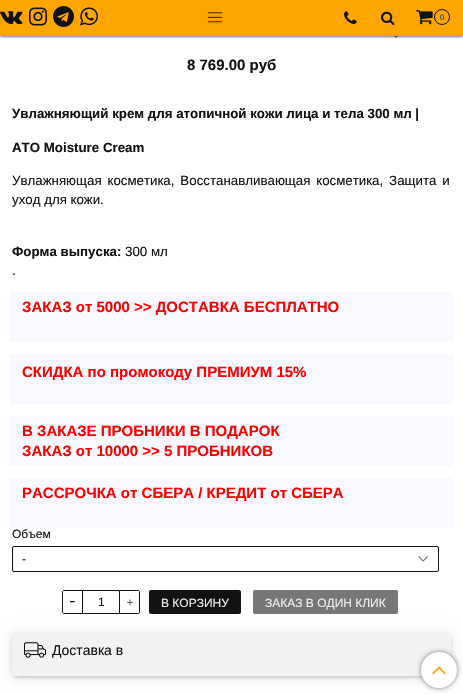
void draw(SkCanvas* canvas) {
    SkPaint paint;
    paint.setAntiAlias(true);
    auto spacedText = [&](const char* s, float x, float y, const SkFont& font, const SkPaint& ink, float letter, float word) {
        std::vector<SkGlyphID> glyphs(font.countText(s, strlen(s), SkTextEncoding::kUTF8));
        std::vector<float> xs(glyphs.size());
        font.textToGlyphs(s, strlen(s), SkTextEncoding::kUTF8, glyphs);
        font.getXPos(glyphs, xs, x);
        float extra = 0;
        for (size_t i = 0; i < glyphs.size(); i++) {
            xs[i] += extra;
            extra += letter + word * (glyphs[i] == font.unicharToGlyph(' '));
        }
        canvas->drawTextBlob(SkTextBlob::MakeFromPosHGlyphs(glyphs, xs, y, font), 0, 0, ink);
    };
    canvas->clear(0xFFFFFFFF);
    canvas->drawImageRect(SkImages::DeferredFromEncodedData(SkData::MakeFromFileName("img9.png")), SkRect::MakeXYWH(394, 36, 4, 2), SkSamplingOptions());
    paint.setColor(0xFF000000);
    paint.setMaskFilter(SkMaskFilter::MakeBlur(kNormal_SkBlurStyle, 1.5f));
    canvas->drawRect(SkRect::MakeXYWH(0, 0, 463, 36), paint);
    paint.setMaskFilter(nullptr);
    paint.setColor(0xFFFFA500);
    canvas->drawRect(SkRect::MakeXYWH(0, 0, 463, 36), paint);
    canvas->drawImageRect(SkImages::DeferredFromEncodedData(SkData::MakeFromFileName("img1.png")), SkRect::MakeXYWH(0, 11, 23, 13), SkSamplingOptions());
    canvas->drawImageRect(SkImages::DeferredFromEncodedData(SkData::MakeFromFileName("img2.png")), SkRect::MakeXYWH(29, 7, 18, 19), SkSamplingOptions());
    canvas->drawImageRect(SkImages::DeferredFromEncodedData(SkData::MakeFromFileName("img3.png")), SkRect::MakeXYWH(53, 6, 21, 21), SkSamplingOptions());
    canvas->drawImageRect(SkImages::DeferredFromEncodedData(SkData::MakeFromFileName("img4.png")), SkRect::MakeXYWH(80, 7, 18, 19), SkSamplingOptions());
    canvas->drawImageRect(SkImages::DeferredFromEncodedData(SkData::MakeFromFileName("img5.png")), SkRect::MakeXYWH(207, 12, 16, 11), SkSamplingOptions());
    canvas->drawImageRect(SkImages::DeferredFromEncodedData(SkData::MakeFromFileName("img6.png")), SkRect::MakeXYWH(344, 11, 13, 13), SkSamplingOptions());
    canvas->drawImageRect(SkImages::DeferredFromEncodedData(SkData::MakeFromFileName("img7.png")), SkRect::MakeXYWH(381, 11, 14, 14), SkSamplingOptions());
    canvas->drawImageRect(SkImages::DeferredFromEncodedData(SkData::MakeFromFileName("img8.png")), SkRect::MakeXYWH(416, 10, 17, 15), SkSamplingOptions());
    paint.setStyle(SkPaint::kStroke_Style);
    paint.setStrokeWidth(1);
    paint.setColor(0xFF121212);
    canvas->drawCircle(442, 17, 7.5f, paint);
    SkFont font1(fontMgr->matchFamilyStyle("Liberation Sans", SkFontStyle::Normal()), 8);
    font1.setSubpixel(true);
    paint.setStyle(SkPaint::kFill_Style);
    paint.setColor(0xFF122FAA);
    canvas->drawString("0", 440, 20, font1, paint);
    SkFont font2(fontMgr->matchFamilyStyle("Liberation Sans", SkFontStyle::Bold()), 15);
    font2.setSubpixel(true);
    paint.setColor(0xFF121214);
    canvas->drawString("8 769.00 руб", 187, 70, font2, paint);
    SkFont font3(fontMgr->matchFamilyStyle("Liberation Sans", SkFontStyle::Bold()), 13.3f);
    font3.setSubpixel(true);
    canvas->drawString("Увлажняющий крем для атопичной кожи лица и тела 300 мл |", 12, 118, font3, paint);
    canvas->drawString("ATO Moisture Cream", 12, 152, font3, paint);
    SkFont font4(fontMgr->matchFamilyStyle("Liberation Sans", SkFontStyle::Normal()), 13.3f);
    font4.setSubpixel(true);
    spacedText("Увлажняющая косметика, Восстанавливающая косметика, Защита и", 12, 185, font4, paint, 0, 2.25f);
    canvas->drawString("уход для кожи.", 12, 204, font4, paint);
    canvas->drawString("Форма выпуска:", 12, 256, font3, paint);
    canvas->drawString("300 мл", 125, 256, font4, paint);
    canvas->drawString(".", 12, 275, font4, paint);
    paint.setColor(0xFFF8F8FF);
    canvas->drawRect(SkRect::MakeXYWH(10, 292, 443, 50), paint);
    paint.setColor(0xFFFF0000);
    canvas->drawString("ЗАКАЗ от 5000 >> ДОСТАВКА БЕСПЛАТНО", 22, 312, font2, paint);
    paint.setColor(0xFFF8F8FF);
    canvas->drawRect(SkRect::MakeXYWH(10, 354, 443, 50), paint);
    paint.setColor(0xFFFF0000);
    canvas->drawString("СКИДКА по промокоду ПРЕМИУМ 15%", 22, 377, font2, paint);
    paint.setColor(0xFFF8F8FF);
    canvas->drawRect(SkRect::MakeXYWH(10, 416, 443, 50), paint);
    paint.setColor(0xFFFF0000);
    canvas->drawString("В ЗАКАЗЕ ПРОБНИКИ В ПОДАРОК", 22, 436, font2, paint);
    canvas->drawString("ЗАКАЗ от 10000 >> 5 ПРОБНИКОВ", 22, 456, font2, paint);
    paint.setColor(0xFFF8F8FF);
    canvas->drawRect(SkRect::MakeXYWH(10, 478, 443, 50), paint);
    paint.setColor(0xFFFF0000);
    canvas->drawString("РАССРОЧКА от СБЕРА / КРЕДИТ от СБЕРА", 22, 498, font2, paint);
    SkFont font5(fontMgr->matchFamilyStyle("Liberation Sans", SkFontStyle::Normal()), 12);
    font5.setSubpixel(true);
    paint.setColor(0xFF121214);
    canvas->drawString("Объем", 12, 538, font5, paint);
    canvas->drawImageRect(SkImages::DeferredFromEncodedData(SkData::MakeFromFileName("img10.png")), SkRect::MakeXYWH(418, 556, 10, 6), SkSamplingOptions());
    paint.setStyle(SkPaint::kStroke_Style);
    canvas->drawRoundRect(SkRect::MakeXYWH(12.5f, 546.5f, 426, 25), 1.5f, 1.5f, paint);
    paint.setStyle(SkPaint::kFill_Style);
    paint.setColor(0xFF000000);
    canvas->drawString("-", 22, 563, font5, paint);
    paint.setColor(0x0D000000);
    paint.setMaskFilter(SkMaskFilter::MakeBlur(kNormal_SkBlurStyle, 8));
    canvas->drawRoundRect(SkRect::MakeXYWH(12, 634, 439, 44), 6, 6, paint);
    paint.setMaskFilter(nullptr);
    paint.setStyle(SkPaint::kStroke_Style);
    paint.setColor(0xFF121214);
    canvas->drawPath(SkPathBuilder().moveTo(64, 590.5f).lineTo(82.5f, 590.5f).lineTo(82.5f, 613.5f).lineTo(64, 613.5f).cubicTo(63, 613.5f, 62.5f, 613, 62.5f, 612).lineTo(62.5f, 592).cubicTo(62.5f, 591, 63, 590.5f, 64, 590.5f).close().detach(), paint);
    canvas->drawImageRect(SkImages::DeferredFromEncodedData(SkData::MakeFromFileName("img11.png")), SkRect::MakeXYWH(70, 601, 5, 2), SkSamplingOptions());
    paint.setStyle(SkPaint::kFill_Style);
    canvas->drawRect(SkRect::MakeXYWH(83, 590, 36, 1), paint);
    canvas->drawRect(SkRect::MakeXYWH(83, 613, 36, 1), paint);
    canvas->drawString("1", 98, 606, font5, paint);
    paint.setStyle(SkPaint::kStroke_Style);
    canvas->drawPath(SkPathBuilder().moveTo(119.5f, 590.5f).lineTo(138, 590.5f).cubicTo(139, 590.5f, 139.5f, 591, 139.5f, 592).lineTo(139.5f, 612).cubicTo(139.5f, 613, 139, 613.5f, 138, 613.5f).lineTo(119.5f, 613.5f).close().detach(), paint);
    canvas->drawImageRect(SkImages::DeferredFromEncodedData(SkData::MakeFromFileName("img12.png")), SkRect::MakeXYWH(127, 599, 6, 7), SkSamplingOptions());
    paint.setStyle(SkPaint::kFill_Style);
    paint.setColor(0xFF121212);
    canvas->drawRoundRect(SkRect::MakeXYWH(149, 590, 92, 24), 2, 2, paint);
    paint.setColor(0xFFEEEEEE);
    canvas->drawString("В КОРЗИНУ", 161, 607, font5, paint);
    paint.setColor(0xFF777777);
    canvas->drawRoundRect(SkRect::MakeXYWH(253, 590, 145, 24), 2, 2, paint);
    paint.setColor(0xFFEEEEEE);
    canvas->drawString("ЗАКАЗ В ОДИН КЛИК", 265, 607, font5, paint);
    paint.setColor(0x0D000000);
    paint.setMaskFilter(SkMaskFilter::MakeBlur(kNormal_SkBlurStyle, 4));
    canvas->drawRoundRect(SkRect::MakeXYWH(12, 634, 439, 44), 6, 6, paint);
    paint.setMaskFilter(nullptr);
    paint.setMaskFilter(SkMaskFilter::MakeBlur(kNormal_SkBlurStyle, 2));
    canvas->drawRoundRect(SkRect::MakeXYWH(12, 634, 439, 44), 6, 6, paint);
    paint.setMaskFilter(nullptr);
    paint.setMaskFilter(SkMaskFilter::MakeBlur(kNormal_SkBlurStyle, 1));
    canvas->drawRoundRect(SkRect::MakeXYWH(12, 634, 439, 44), 6, 6, paint);
    paint.setMaskFilter(nullptr);
    paint.setMaskFilter(SkMaskFilter::MakeBlur(kNormal_SkBlurStyle, 0.5f));
    canvas->drawRoundRect(SkRect::MakeXYWH(12, 633, 439, 44), 6, 6, paint);
    paint.setMaskFilter(nullptr);
    paint.setColor(0xFFF2F2F2);
    canvas->drawPath(SkPathBuilder().moveTo(18, 632).lineTo(445, 632).cubicTo(448.5f, 632, 451, 634.5f, 451, 638).lineTo(451, 676).lineTo(12, 676).lineTo(12, 638).cubicTo(12, 634.5f, 14.5f, 632, 18, 632).close().detach(), paint);
    canvas->drawImageRect(SkImages::DeferredFromEncodedData(SkData::MakeFromFileName("img13.png")), SkRect::MakeXYWH(24, 642, 22, 16), SkSamplingOptions());
    SkFont font6(fontMgr->matchFamilyStyle("Liberation Sans", SkFontStyle::Normal()), 14);
    font6.setSubpixel(true);
    paint.setColor(0xFF121214);
    canvas->drawString("Доставка в", 52, 655, font6, paint);
    paint.setColor(0xFF777777);
    paint.setMaskFilter(SkMaskFilter::MakeBlur(kNormal_SkBlurStyle, 2.5f));
    canvas->drawRoundRect(SkRect::MakeXYWH(421, 652, 36, 36), 18, 18, paint);
    paint.setMaskFilter(nullptr);
    paint.setColor(0xFFFFFFFF);
    canvas->drawCircle(439, 670, 18, paint);
    canvas->drawImageRect(SkImages::DeferredFromEncodedData(SkData::MakeFromFileName("img14.png")), SkRect::MakeXYWH(432, 666, 14, 9), SkSamplingOptions());
}
